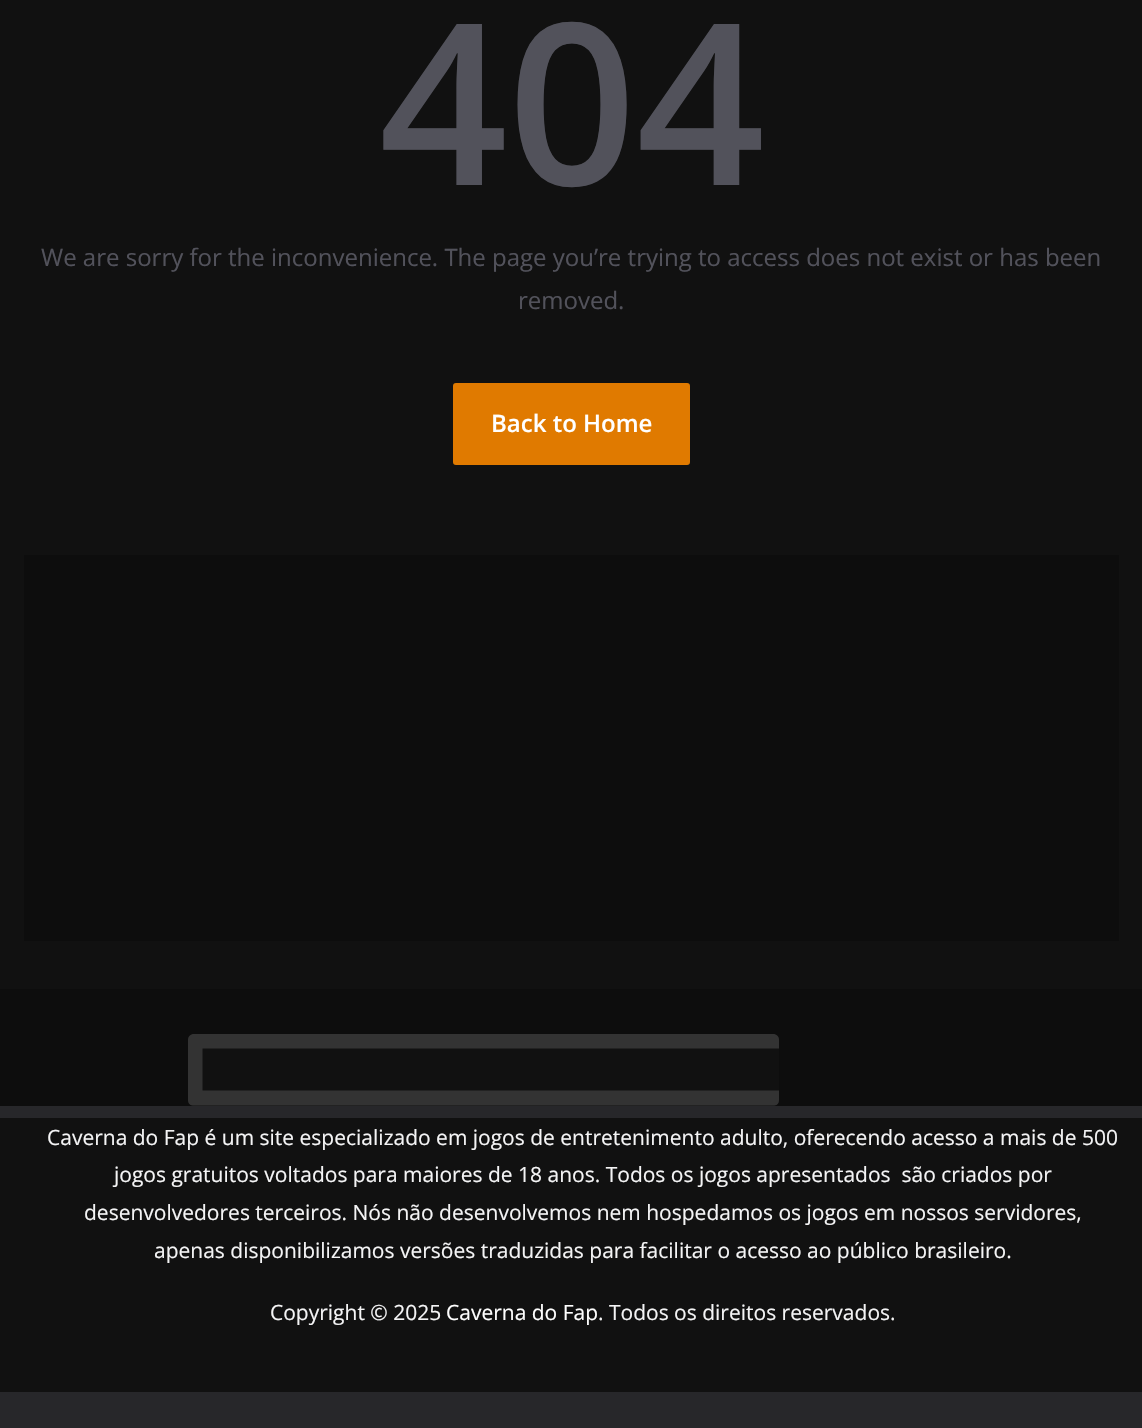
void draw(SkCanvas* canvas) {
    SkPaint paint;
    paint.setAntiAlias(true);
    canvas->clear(0xFF0D0D0D);
    paint.setColor(0xFF111111);
    canvas->drawRect(SkRect::MakeXYWH(0, 0, 1142, 989), paint);
    SkFont font1(fontMgr->matchFamilyStyle("Open Sans", SkFontStyle(600, SkFontStyle::kNormal_Width, SkFontStyle::kUpright_Slant)), 225);
    font1.setSubpixel(true);
    paint.setColor(0xFF52525B);
    canvas->drawString("404", 379, 185, font1, paint);
    SkFont font2(fontMgr->matchFamilyStyle("Open Sans", SkFontStyle::Normal()), 24);
    font2.setSubpixel(true);
    canvas->drawString("We are sorry for the inconvenience. The page you’re trying to access does not exist or has been", 41, 266, font2, paint);
    canvas->drawString("removed.", 518, 309, font2, paint);
    paint.setColor(0xFFE07A00);
    canvas->drawRoundRect(SkRect::MakeXYWH(454, 384, 235, 80), 2, 2, paint);
    paint.setStyle(SkPaint::kStroke_Style);
    paint.setStrokeWidth(2);
    canvas->drawRoundRect(SkRect::MakeXYWH(454, 384, 235, 80), 2, 2, paint);
    SkFont font3(fontMgr->matchFamilyStyle("Open Sans", SkFontStyle(600, SkFontStyle::kNormal_Width, SkFontStyle::kUpright_Slant)), 24);
    font3.setSubpixel(true);
    paint.setStyle(SkPaint::kFill_Style);
    paint.setColor(0xFFFFFFFF);
    canvas->drawString("Back to Home", 491, 432, font3, paint);
    paint.setColor(0xFF0D0D0D);
    canvas->drawRect(SkRect::MakeXYWH(24, 555, 1095, 386), paint);
    paint.setColor(0xFF111111);
    canvas->drawRoundRect(SkRect::MakeXYWH(188, 1034, 591, 72), 6, 6, paint);
    canvas->save();
    canvas->clipPath(SkPathBuilder().moveTo(194, 1034).lineTo(773, 1034).cubicTo(776.5f, 1034, 779, 1036.5f, 779, 1040).lineTo(779, 1100).cubicTo(779, 1103.5f, 776.5f, 1106, 773, 1106).lineTo(194, 1106).cubicTo(190.5f, 1106, 188, 1103.5f, 188, 1100).lineTo(188, 1040).cubicTo(188, 1036.5f, 190.5f, 1034, 194, 1034).close().detach(), true);
    paint.setStyle(SkPaint::kStroke_Style);
    paint.setStrokeWidth(15);
    paint.setColor(0xFF333333);
    canvas->drawPath(SkPathBuilder().moveTo(195, 1041).lineTo(915, 1041).lineTo(915, 1098).lineTo(195, 1098).close().detach(), paint);
    canvas->restore();
    paint.setStyle(SkPaint::kFill_Style);
    paint.setColor(0xFF27272A);
    canvas->drawRect(SkRect::MakeXYWH(0, 1106, 1142, 322), paint);
    paint.setColor(0xFF111111);
    canvas->drawRect(SkRect::MakeXYWH(0, 1118, 1142, 274), paint);
    SkFont font4(fontMgr->matchFamilyStyle("Open Sans", SkFontStyle::Normal()), 21);
    font4.setSubpixel(true);
    paint.setColor(0xFFF4F4F5);
    canvas->drawString("Caverna do Fap é um site especializado em jogos de entretenimento adulto, oferecendo acesso a mais de 500", 47, 1145, font4, paint);
    canvas->drawString("jogos gratuitos voltados para maiores de 18 anos. Todos os jogos apresentados  são criados por", 114, 1182, font4, paint);
    canvas->drawString("desenvolvedores terceiros. Nós não desenvolvemos nem hospedamos os jogos em nossos servidores,", 84, 1220, font4, paint);
    canvas->drawString("apenas disponibilizamos versões traduzidas para facilitar o acesso ao público brasileiro.", 154, 1258, font4, paint);
    canvas->drawString("Copyright © 2025", 270, 1320, font4, paint);
    paint.setColor(0xFFFFFFFF);
    canvas->drawString("Caverna do Fap", 446, 1320, font4, paint);
    paint.setColor(0xFFF4F4F5);
    canvas->drawString(". Todos os direitos reservados.", 598, 1320, font4, paint);
}
